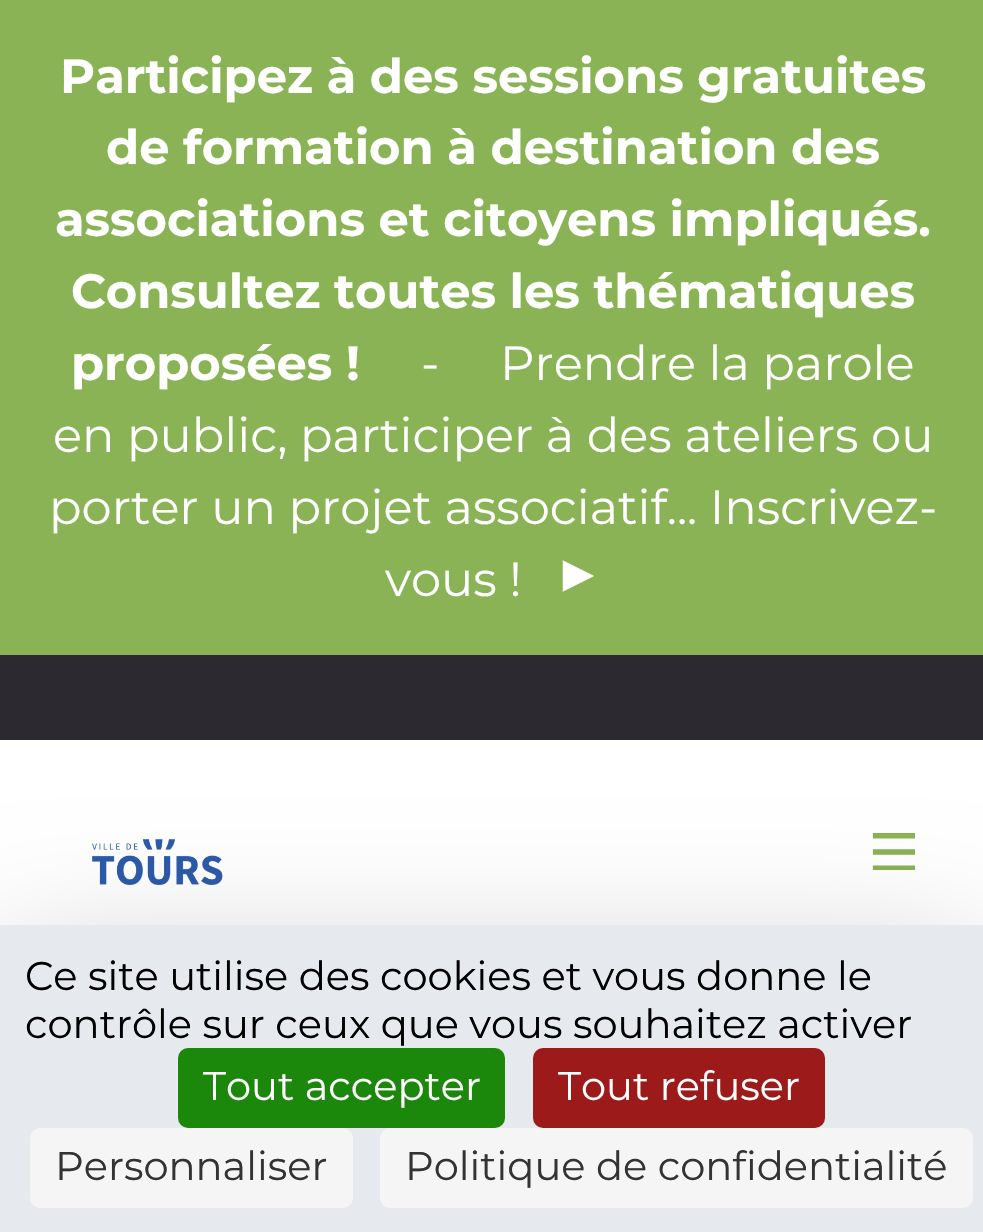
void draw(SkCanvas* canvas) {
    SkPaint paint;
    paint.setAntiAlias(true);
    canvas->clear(0xFF89B355);
    SkFont font1(fontMgr->matchFamilyStyle("Montserrat", SkFontStyle::Bold()), 48);
    font1.setSubpixel(true);
    paint.setColor(0xFFFFFFFF);
    canvas->drawString("Participez à des sessions gratuites", 60, 93, font1, paint);
    canvas->drawString("de formation à destination des", 106, 164, font1, paint);
    canvas->drawString("associations et citoyens impliqués.", 55, 236, font1, paint);
    canvas->drawString("Consultez toutes les thématiques", 71, 308, font1, paint);
    canvas->drawString("proposées !", 71, 380, font1, paint);
    SkFont font2(fontMgr->matchFamilyStyle("Montserrat", SkFontStyle::Normal()), 48);
    font2.setSubpixel(true);
    canvas->drawString("-", 421, 380, font2, paint);
    canvas->drawString("Prendre la parole", 500, 380, font2, paint);
    canvas->drawString("en public, participer à des ateliers ou", 53, 452, font2, paint);
    canvas->drawString("porter un projet associatif... Inscrivez-", 49, 524, font2, paint);
    canvas->drawString("vous !", 385, 596, font2, paint);
    canvas->drawImageRect(SkImages::DeferredFromEncodedData(SkData::MakeFromFileName("img1.png")), SkRect::MakeXYWH(562, 560, 32, 32), SkSamplingOptions());
    canvas->drawRect(SkRect::MakeXYWH(0, 740, 983, 185), paint);
    paint.setColor(0xFF2C2930);
    canvas->drawRect(SkRect::MakeXYWH(0, 655, 983, 85), paint);
    canvas->drawImageRect(SkImages::DeferredFromEncodedData(SkData::MakeFromFileName("img2.png")), SkRect::MakeXYWH(92, 839, 131, 47), SkSamplingOptions());
    canvas->drawImageRect(SkImages::DeferredFromEncodedData(SkData::MakeFromFileName("img3.png")), SkRect::MakeXYWH(872, 833, 43, 37), SkSamplingOptions());
    paint.setColor(0x40000000);
    paint.setMaskFilter(SkMaskFilter::MakeBlur(kNormal_SkBlurStyle, 75));
    canvas->drawRect(SkRect::MakeXYWH(0, 975, 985, 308), paint);
    paint.setMaskFilter(nullptr);
    paint.setColor(0xFFE6EAEE);
    canvas->drawRect(SkRect::MakeXYWH(0, 925, 983, 307), paint);
    SkFont font3(fontMgr->matchFamilyStyle("Montserrat", SkFontStyle::Normal()), 40);
    font3.setSubpixel(true);
    paint.setColor(0xFF000000);
    canvas->drawString("Ce site utilise des cookies et vous donne le", 25, 990, font3, paint);
    canvas->drawString("contrôle sur ceux que vous souhaitez activer", 25, 1038, font3, paint);
    paint.setColor(0xFF1B870B);
    canvas->drawRoundRect(SkRect::MakeXYWH(178, 1048, 327, 80), 10, 10, paint);
    paint.setColor(0xFFFFFFFF);
    canvas->drawString("Tout accepter", 203, 1100, font3, paint);
    paint.setColor(0xFF9C1A1A);
    canvas->drawRoundRect(SkRect::MakeXYWH(533, 1048, 292, 80), 10, 10, paint);
    paint.setColor(0xFFFFFFFF);
    canvas->drawString("Tout refuser", 558, 1100, font3, paint);
    paint.setColor(0xFFF5F5F5);
    canvas->drawRoundRect(SkRect::MakeXYWH(30, 1128, 323, 80), 10, 10, paint);
    paint.setColor(0xFF333333);
    canvas->drawString("Personnaliser", 55, 1180, font3, paint);
    paint.setColor(0xFFF5F5F5);
    canvas->drawRoundRect(SkRect::MakeXYWH(380, 1128, 593, 80), 10, 10, paint);
    paint.setColor(0xFF333333);
    canvas->drawString("Politique de confidentialité", 405, 1180, font3, paint);
}
